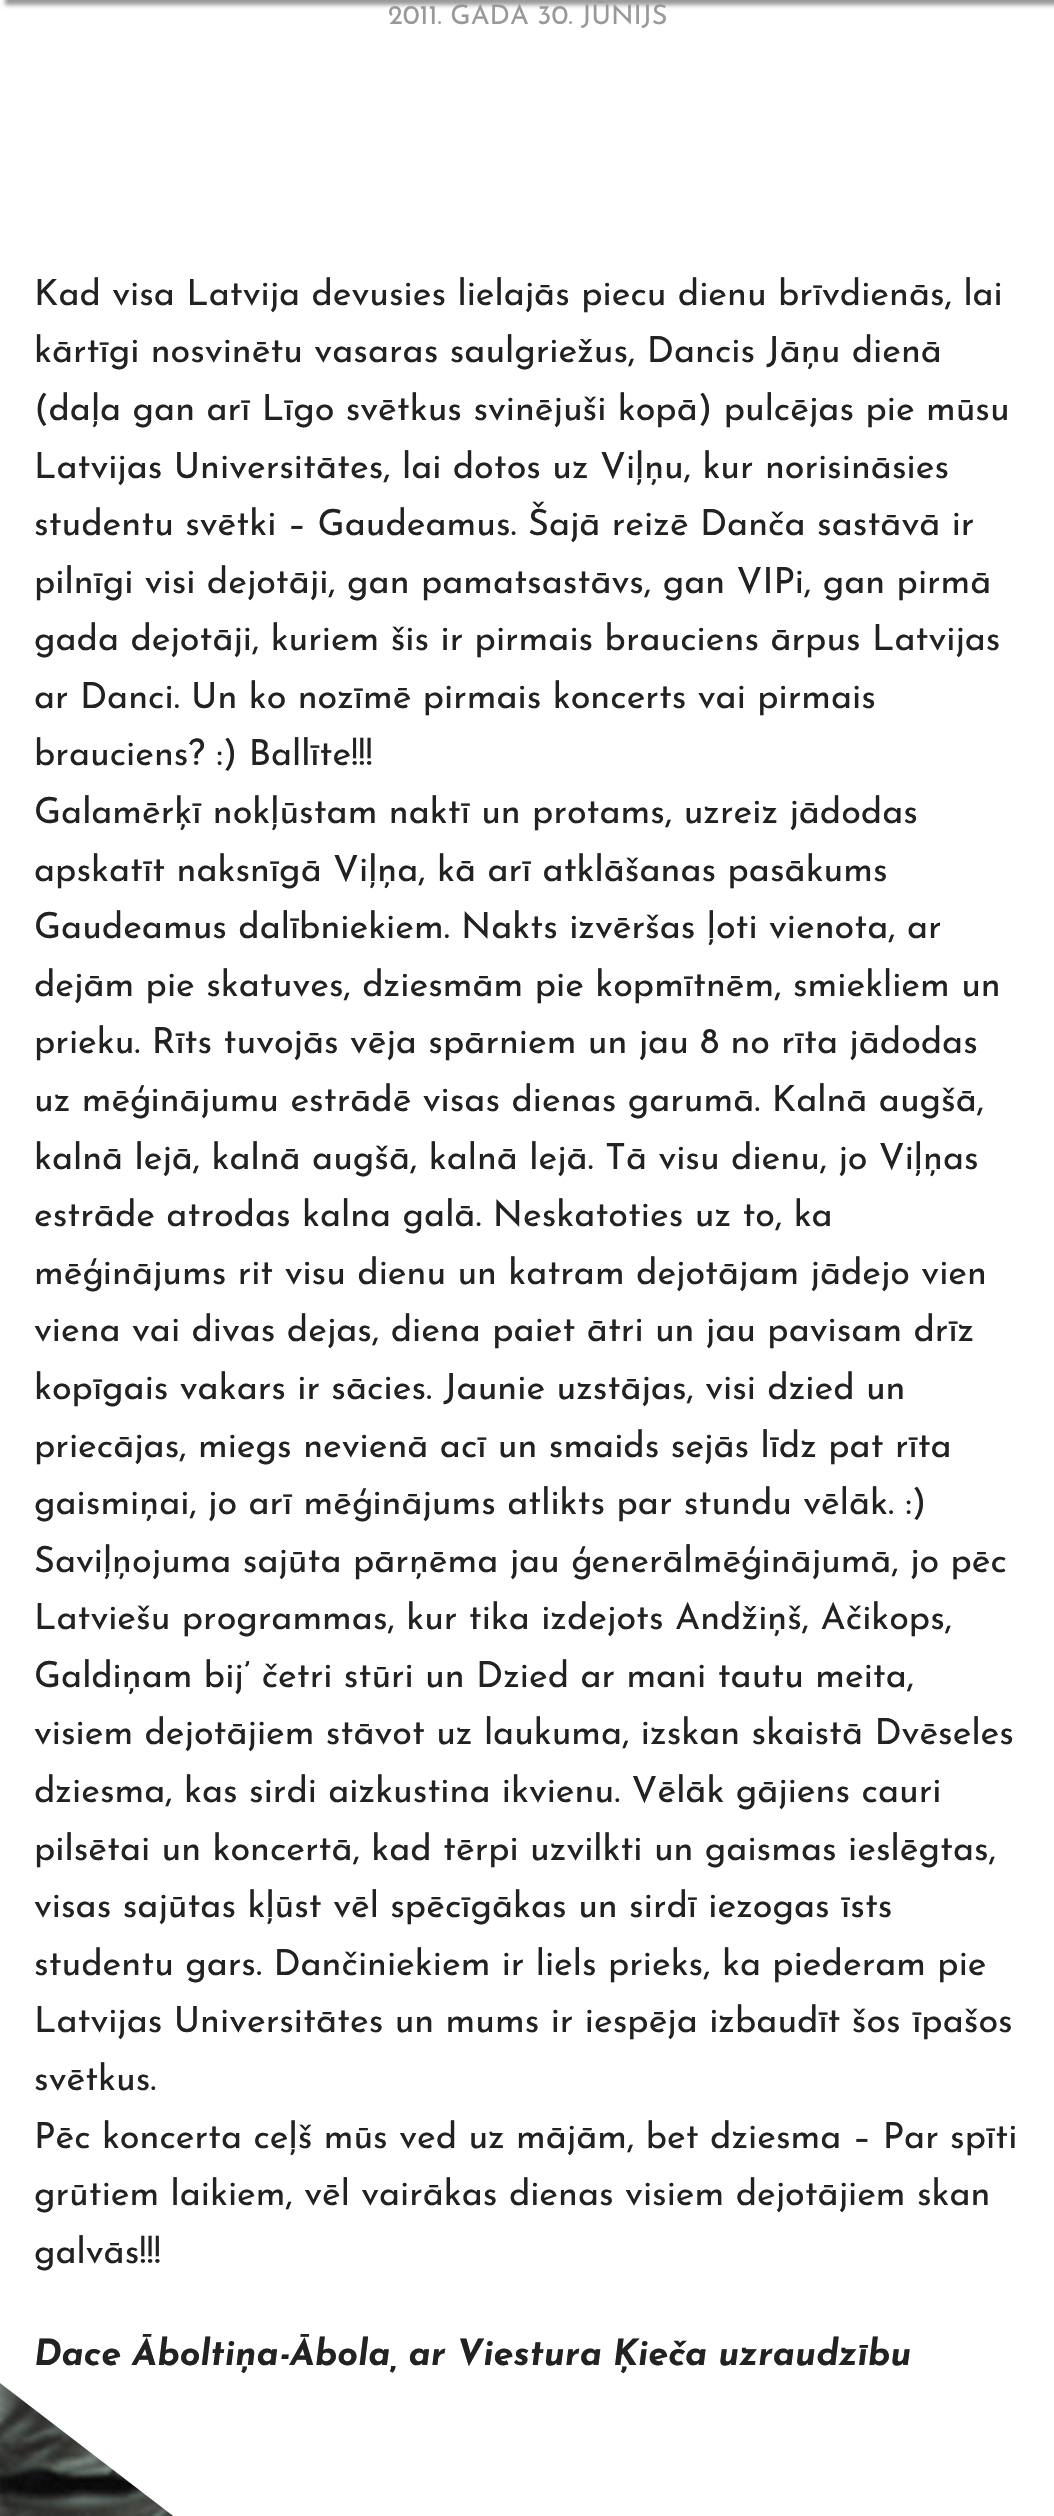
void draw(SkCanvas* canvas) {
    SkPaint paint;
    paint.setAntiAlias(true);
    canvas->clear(0xFFFFFFFF);
    paint.setColor(0x66000000);
    paint.setMaskFilter(SkMaskFilter::MakeBlur(kNormal_SkBlurStyle, 2));
    canvas->drawRect(SkRect::MakeXYWH(5, -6, 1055, 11), paint);
    paint.setMaskFilter(nullptr);
    SkFont font1(fontMgr->matchFamilyStyle("Josefin Sans", SkFontStyle::Normal()), 27);
    font1.setSubpixel(true);
    paint.setColor(0xFF999999);
    canvas->drawString("2011. GADA 30. JŪNIJS", 388, 24, font1, paint);
    SkFont font2(fontMgr->matchFamilyStyle("Josefin Sans", SkFontStyle::Normal()), 36);
    font2.setSubpixel(true);
    paint.setColor(0xFF222222);
    canvas->drawString("Kad visa Latvija devusies lielajās piecu dienu brīvdienās, lai", 34, 305, font2, paint);
    canvas->drawString("kārtīgi nosvinētu vasaras saulgriežus, Dancis Jāņu dienā", 34, 362, font2, paint);
    canvas->drawString("(daļa gan arī Līgo svētkus svinējuši kopā) pulcējas pie mūsu", 34, 420, font2, paint);
    canvas->drawString("Latvijas Universitātes, lai dotos uz Viļņu, kur norisināsies", 34, 478, font2, paint);
    canvas->drawString("studentu svētki – Gaudeamus. Šajā reizē Danča sastāvā ir", 34, 535, font2, paint);
    canvas->drawString("pilnīgi visi dejotāji, gan pamatsastāvs, gan VIPi, gan pirmā", 34, 593, font2, paint);
    canvas->drawString("gada dejotāji, kuriem šis ir pirmais brauciens ārpus Latvijas", 34, 650, font2, paint);
    canvas->drawString("ar Danci. Un ko nozīmē pirmais koncerts vai pirmais", 34, 708, font2, paint);
    canvas->drawString("brauciens? :) Ballīte!!!", 34, 765, font2, paint);
    canvas->drawString("Galamērķī nokļūstam naktī un protams, uzreiz jādodas", 34, 823, font2, paint);
    canvas->drawString("apskatīt naksnīgā Viļņa, kā arī atklāšanas pasākums", 34, 881, font2, paint);
    canvas->drawString("Gaudeamus dalībniekiem. Nakts izvēršas ļoti vienota, ar", 34, 938, font2, paint);
    canvas->drawString("dejām pie skatuves, dziesmām pie kopmītnēm, smiekliem un", 34, 996, font2, paint);
    canvas->drawString("prieku. Rīts tuvojās vēja spārniem un jau 8 no rīta jādodas", 34, 1053, font2, paint);
    canvas->drawString("uz mēģinājumu estrādē visas dienas garumā. Kalnā augšā,", 34, 1111, font2, paint);
    canvas->drawString("kalnā lejā, kalnā augšā, kalnā lejā. Tā visu dienu, jo Viļņas", 34, 1169, font2, paint);
    canvas->drawString("estrāde atrodas kalna galā. Neskatoties uz to, ka", 34, 1226, font2, paint);
    canvas->drawString("mēģinājums rit visu dienu un katram dejotājam jādejo vien", 34, 1284, font2, paint);
    canvas->drawString("viena vai divas dejas, diena paiet ātri un jau pavisam drīz", 34, 1341, font2, paint);
    canvas->drawString("kopīgais vakars ir sācies. Jaunie uzstājas, visi dzied un", 34, 1399, font2, paint);
    canvas->drawString("priecājas, miegs nevienā acī un smaids sejās līdz pat rīta", 34, 1457, font2, paint);
    canvas->drawString("gaismiņai, jo arī mēģinājums atlikts par stundu vēlāk. :)", 34, 1514, font2, paint);
    canvas->drawString("Saviļņojuma sajūta pārņēma jau ģenerālmēģinājumā, jo pēc", 34, 1572, font2, paint);
    canvas->drawString("Latviešu programmas, kur tika izdejots Andžiņš, Ačikops,", 34, 1629, font2, paint);
    canvas->drawString("Galdiņam bij’ četri stūri un Dzied ar mani tautu meita,", 34, 1687, font2, paint);
    canvas->drawString("visiem dejotājiem stāvot uz laukuma, izskan skaistā Dvēseles", 34, 1744, font2, paint);
    canvas->drawString("dziesma, kas sirdi aizkustina ikvienu. Vēlāk gājiens cauri", 34, 1802, font2, paint);
    canvas->drawString("pilsētai un koncertā, kad tērpi uzvilkti un gaismas ieslēgtas,", 34, 1860, font2, paint);
    canvas->drawString("visas sajūtas kļūst vēl spēcīgākas un sirdī iezogas īsts", 34, 1917, font2, paint);
    canvas->drawString("studentu gars. Dančiniekiem ir liels prieks, ka piederam pie", 34, 1975, font2, paint);
    canvas->drawString("Latvijas Universitātes un mums ir iespēja izbaudīt šos īpašos", 34, 2032, font2, paint);
    canvas->drawString("svētkus.", 34, 2090, font2, paint);
    canvas->drawString("Pēc koncerta ceļš mūs ved uz mājām, bet dziesma – Par spīti", 34, 2148, font2, paint);
    canvas->drawString("grūtiem laikiem, vēl vairākas dienas visiem dejotājiem skan", 34, 2205, font2, paint);
    canvas->drawString("galvās!!!", 34, 2263, font2, paint);
    SkFont font3(fontMgr->matchFamilyStyle("Josefin Sans", SkFontStyle::BoldItalic()), 36);
    font3.setSubpixel(true);
    canvas->drawString("Dace Āboltiņa-Ābola, ar Viestura Ķieča uzraudzību", 34, 2365, font3, paint);
    canvas->drawImageRect(SkImages::DeferredFromEncodedData(SkData::MakeFromFileName("img1.png")), SkRect::MakeXYWH(0, 2383, 174, 133), SkSamplingOptions());
    paint.setColor(0xFFFFFFFF);
    canvas->drawPath(SkPathBuilder().moveTo(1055, 2383).lineTo(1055, 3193).lineTo(0, 2383).close().detach(), paint);
}
